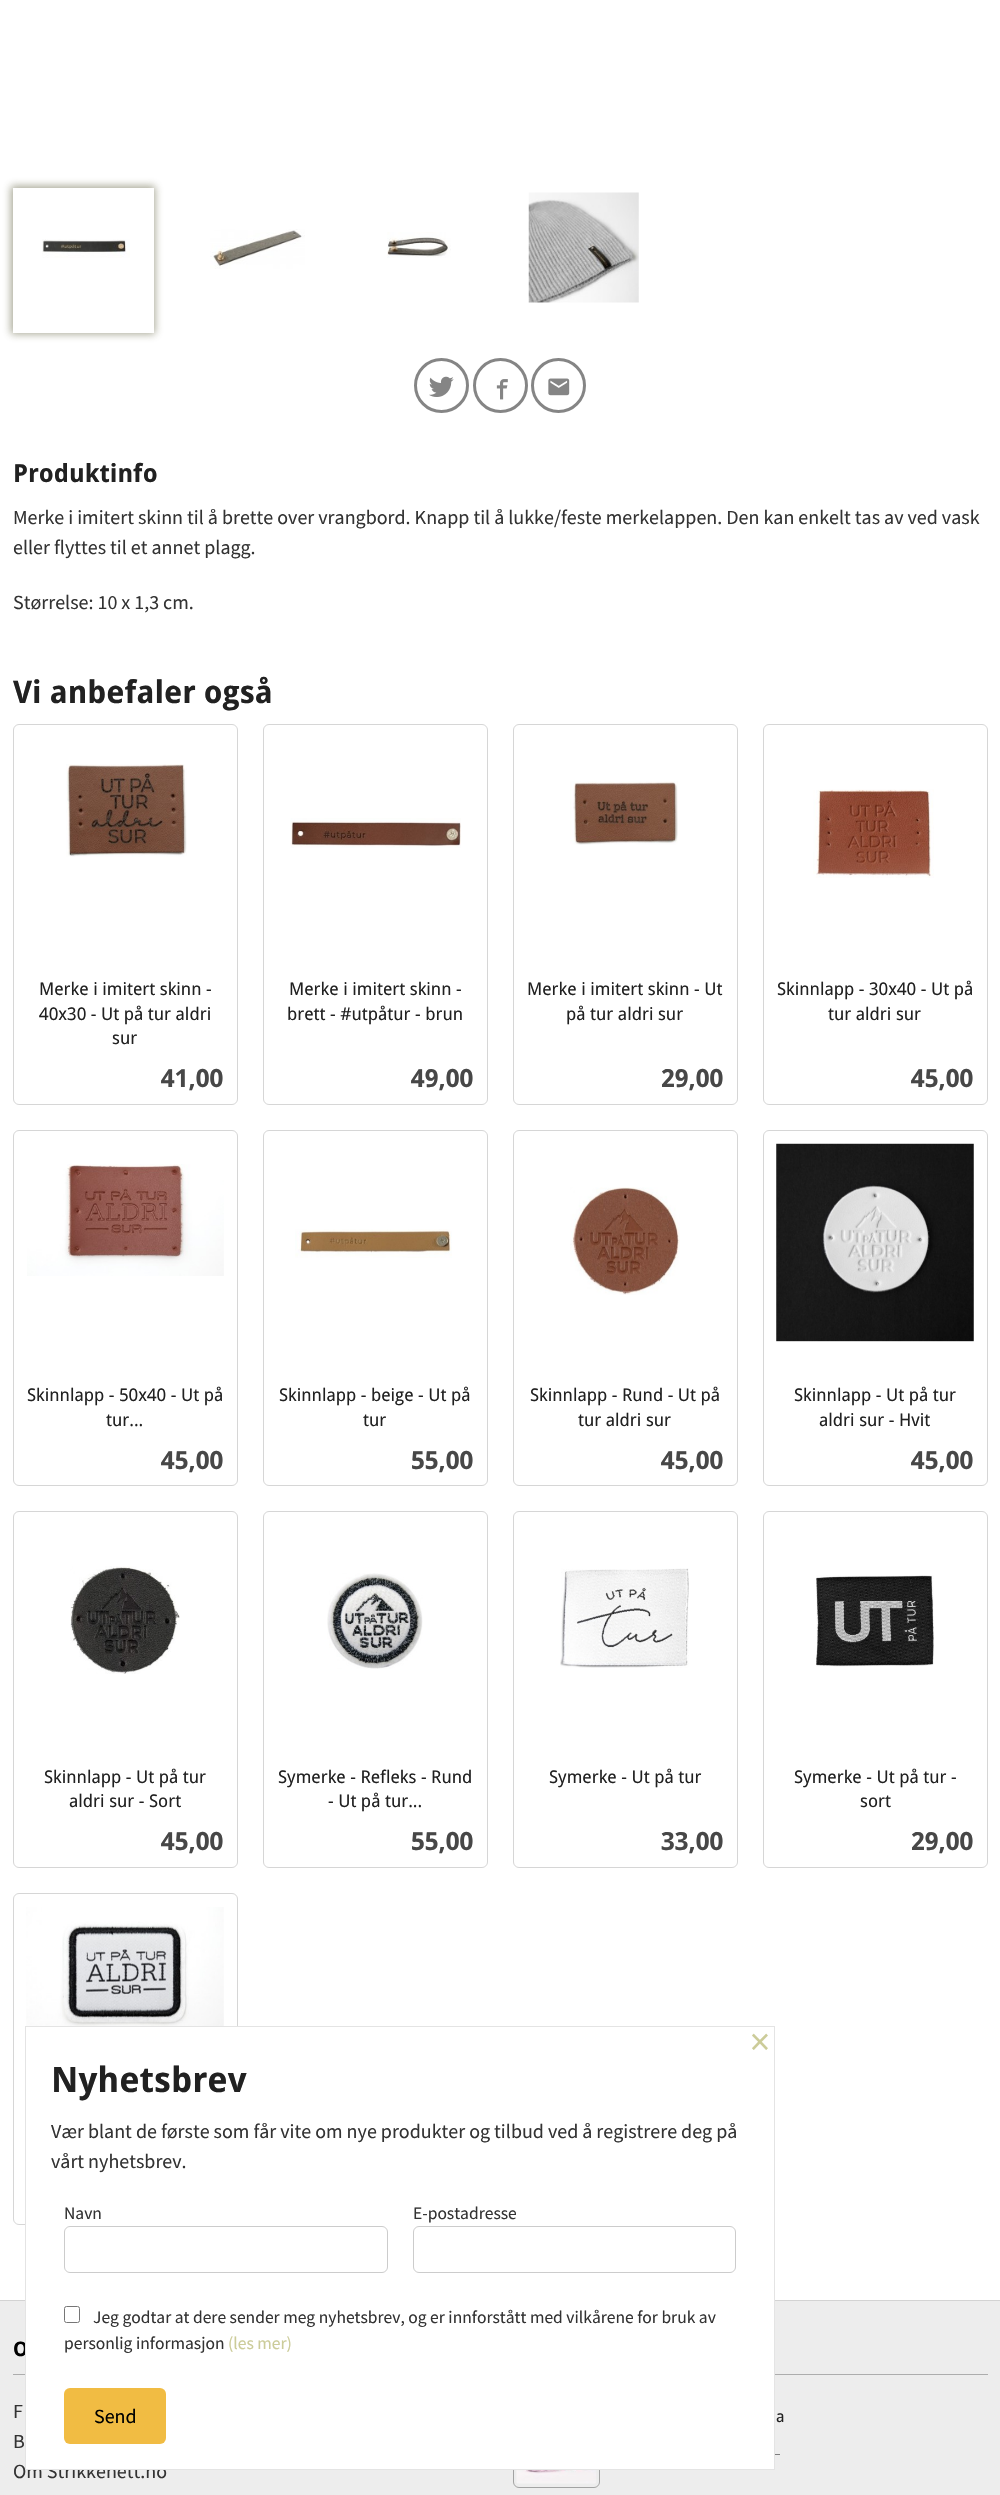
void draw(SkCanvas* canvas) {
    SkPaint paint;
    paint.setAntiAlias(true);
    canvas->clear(0xFFFFFFFF);
    paint.setColor(0x804B4B25);
    paint.setMaskFilter(SkMaskFilter::MakeBlur(kNormal_SkBlurStyle, 4));
    canvas->drawRect(SkRect::MakeXYWH(11, 186, 144, 148), paint);
    paint.setMaskFilter(nullptr);
    paint.setColor(0xFFFFFFFF);
    canvas->drawRect(SkRect::MakeXYWH(13, 188, 141, 145), paint);
    canvas->drawImageRect(SkImages::DeferredFromEncodedData(SkData::MakeFromFileName("img1.png")), SkRect::MakeXYWH(42, 239, 88, 19), SkSamplingOptions());
    canvas->drawImageRect(SkImages::DeferredFromEncodedData(SkData::MakeFromFileName("img2.png")), SkRect::MakeXYWH(210, 229, 95, 40), SkSamplingOptions());
    canvas->drawImageRect(SkImages::DeferredFromEncodedData(SkData::MakeFromFileName("img3.png")), SkRect::MakeXYWH(387, 232, 64, 26), SkSamplingOptions());
    canvas->drawImageRect(SkImages::DeferredFromEncodedData(SkData::MakeFromFileName("img4.png")), SkRect::MakeXYWH(528, 192, 111, 111), SkSamplingOptions());
    paint.setStyle(SkPaint::kStroke_Style);
    paint.setStrokeWidth(3);
    paint.setColor(0xFF858585);
    canvas->drawCircle(441.5f, 385.5f, 26, paint);
    canvas->drawImageRect(SkImages::DeferredFromEncodedData(SkData::MakeFromFileName("img5.png")), SkRect::MakeXYWH(429, 376, 25, 21), SkSamplingOptions());
    canvas->drawCircle(500.5f, 385.5f, 26, paint);
    canvas->drawImageRect(SkImages::DeferredFromEncodedData(SkData::MakeFromFileName("img6.png")), SkRect::MakeXYWH(496, 379, 12, 21), SkSamplingOptions());
    canvas->drawCircle(558.5f, 385.5f, 26, paint);
    canvas->drawImageRect(SkImages::DeferredFromEncodedData(SkData::MakeFromFileName("img7.png")), SkRect::MakeXYWH(548, 378, 22, 18), SkSamplingOptions());
    SkFont font1(fontMgr->matchFamilyStyle("Droid Sans", SkFontStyle::Bold()), 25);
    font1.setSubpixel(true);
    paint.setStyle(SkPaint::kFill_Style);
    paint.setColor(0xFF212121);
    canvas->drawString("Produktinfo", 13, 482, font1, paint);
    SkFont font2(fontMgr->matchFamilyStyle("Source Sans Pro", SkFontStyle::Normal()), 20);
    font2.setSubpixel(true);
    paint.setColor(0xFF333333);
    canvas->drawString("Merke i imitert skinn til å brette over vrangbord. Knapp til å lukke/feste merkelappen. Den kan enkelt tas av ved vask", 13, 524, font2, paint);
    canvas->drawString("eller flyttes til et annet plagg.", 13, 554, font2, paint);
    canvas->drawString("Størrelse: 10 x 1,3 cm.", 13, 609, font2, paint);
    SkFont font3(fontMgr->matchFamilyStyle("Droid Sans", SkFontStyle::Bold()), 31.25f);
    font3.setSubpixel(true);
    paint.setColor(0xFF212121);
    canvas->drawString("Vi anbefaler også", 13, 703, font3, paint);
    paint.setStyle(SkPaint::kStroke_Style);
    paint.setStrokeWidth(1);
    paint.setColor(0xFFD6D6D6);
    canvas->drawRoundRect(SkRect::MakeXYWH(13.5f, 724.5f, 224, 380), 5.5f, 5.5f, paint);
    canvas->drawImageRect(SkImages::DeferredFromEncodedData(SkData::MakeFromFileName("img8.png")), SkRect::MakeXYWH(66, 764, 121, 93), SkSamplingOptions());
    SkFont font4(fontMgr->matchFamilyStyle("Droid Sans", SkFontStyle::Normal()), 17.5f);
    font4.setSubpixel(true);
    paint.setStyle(SkPaint::kFill_Style);
    paint.setColor(0xFF212121);
    canvas->drawString("Merke i imitert skinn -", 39, 995, font4, paint);
    canvas->drawString("40x30 - Ut på tur aldri", 39, 1020, font4, paint);
    canvas->drawString("sur", 112, 1044, font4, paint);
    paint.setColor(0xFF474747);
    canvas->drawString("41,00", 161, 1087, font1, paint);
    paint.setStyle(SkPaint::kStroke_Style);
    paint.setColor(0xFFD6D6D6);
    canvas->drawRoundRect(SkRect::MakeXYWH(263.5f, 724.5f, 224, 380), 5.5f, 5.5f, paint);
    canvas->drawImageRect(SkImages::DeferredFromEncodedData(SkData::MakeFromFileName("img9.png")), SkRect::MakeXYWH(290, 818, 171, 30), SkSamplingOptions());
    paint.setStyle(SkPaint::kFill_Style);
    paint.setColor(0xFF212121);
    canvas->drawString("Merke i imitert skinn -", 289, 995, font4, paint);
    canvas->drawString("brett - #utpåtur - brun", 287, 1020, font4, paint);
    paint.setColor(0xFF474747);
    canvas->drawString("49,00", 411, 1087, font1, paint);
    paint.setStyle(SkPaint::kStroke_Style);
    paint.setColor(0xFFD6D6D6);
    canvas->drawRoundRect(SkRect::MakeXYWH(513.5f, 724.5f, 224, 380), 5.5f, 5.5f, paint);
    canvas->drawImageRect(SkImages::DeferredFromEncodedData(SkData::MakeFromFileName("img10.png")), SkRect::MakeXYWH(570, 781, 108, 64), SkSamplingOptions());
    paint.setStyle(SkPaint::kFill_Style);
    paint.setColor(0xFF212121);
    canvas->drawString("Merke i imitert skinn - Ut", 527, 995, font4, paint);
    canvas->drawString("på tur aldri sur", 566, 1020, font4, paint);
    paint.setColor(0xFF474747);
    canvas->drawString("29,00", 661, 1087, font1, paint);
    paint.setStyle(SkPaint::kStroke_Style);
    paint.setColor(0xFFD6D6D6);
    canvas->drawRoundRect(SkRect::MakeXYWH(763.5f, 724.5f, 224, 380), 5.5f, 5.5f, paint);
    canvas->drawImageRect(SkImages::DeferredFromEncodedData(SkData::MakeFromFileName("img11.png")), SkRect::MakeXYWH(813, 789, 121, 89), SkSamplingOptions());
    paint.setStyle(SkPaint::kFill_Style);
    paint.setColor(0xFF212121);
    canvas->drawString("Skinnlapp - 30x40 - Ut på", 777, 995, font4, paint);
    canvas->drawString("tur aldri sur", 828, 1020, font4, paint);
    paint.setColor(0xFF474747);
    canvas->drawString("45,00", 911, 1087, font1, paint);
    paint.setStyle(SkPaint::kStroke_Style);
    paint.setColor(0xFFD6D6D6);
    canvas->drawRoundRect(SkRect::MakeXYWH(13.5f, 1130.5f, 224, 355), 5.5f, 5.5f, paint);
    canvas->drawImageRect(SkImages::DeferredFromEncodedData(SkData::MakeFromFileName("img12.png")), SkRect::MakeXYWH(27, 1164, 197, 112), SkSamplingOptions());
    paint.setStyle(SkPaint::kFill_Style);
    paint.setColor(0xFF212121);
    canvas->drawString("Skinnlapp - 50x40 - Ut på", 27, 1401, font4, paint);
    canvas->drawString("tur...", 106, 1426, font4, paint);
    paint.setColor(0xFF474747);
    canvas->drawString("45,00", 161, 1469, font1, paint);
    paint.setStyle(SkPaint::kStroke_Style);
    paint.setColor(0xFFD6D6D6);
    canvas->drawRoundRect(SkRect::MakeXYWH(263.5f, 1130.5f, 224, 355), 5.5f, 5.5f, paint);
    canvas->drawImageRect(SkImages::DeferredFromEncodedData(SkData::MakeFromFileName("img13.png")), SkRect::MakeXYWH(295, 1229, 157, 29), SkSamplingOptions());
    paint.setStyle(SkPaint::kFill_Style);
    paint.setColor(0xFF212121);
    canvas->drawString("Skinnlapp - beige - Ut på", 279, 1401, font4, paint);
    canvas->drawString("tur", 363, 1426, font4, paint);
    paint.setColor(0xFF474747);
    canvas->drawString("55,00", 411, 1469, font1, paint);
    paint.setStyle(SkPaint::kStroke_Style);
    paint.setColor(0xFFD6D6D6);
    canvas->drawRoundRect(SkRect::MakeXYWH(513.5f, 1130.5f, 224, 355), 5.5f, 5.5f, paint);
    canvas->drawImageRect(SkImages::DeferredFromEncodedData(SkData::MakeFromFileName("img14.png")), SkRect::MakeXYWH(570, 1187, 110, 108), SkSamplingOptions());
    paint.setStyle(SkPaint::kFill_Style);
    paint.setColor(0xFF212121);
    canvas->drawString("Skinnlapp - Rund - Ut på", 530, 1401, font4, paint);
    canvas->drawString("tur aldri sur", 578, 1426, font4, paint);
    paint.setColor(0xFF474747);
    canvas->drawString("45,00", 661, 1469, font1, paint);
    paint.setStyle(SkPaint::kStroke_Style);
    paint.setColor(0xFFD6D6D6);
    canvas->drawRoundRect(SkRect::MakeXYWH(763.5f, 1130.5f, 224, 355), 5.5f, 5.5f, paint);
    canvas->drawImageRect(SkImages::DeferredFromEncodedData(SkData::MakeFromFileName("img15.png")), SkRect::MakeXYWH(776, 1143, 198, 199), SkSamplingOptions());
    paint.setStyle(SkPaint::kFill_Style);
    paint.setColor(0xFF212121);
    canvas->drawString("Skinnlapp - Ut på tur", 794, 1401, font4, paint);
    canvas->drawString("aldri sur - Hvit", 819, 1426, font4, paint);
    paint.setColor(0xFF474747);
    canvas->drawString("45,00", 911, 1469, font1, paint);
    paint.setStyle(SkPaint::kStroke_Style);
    paint.setColor(0xFFD6D6D6);
    canvas->drawRoundRect(SkRect::MakeXYWH(13.5f, 1511.5f, 224, 356), 5.5f, 5.5f, paint);
    canvas->drawImageRect(SkImages::DeferredFromEncodedData(SkData::MakeFromFileName("img16.png")), SkRect::MakeXYWH(70, 1566, 110, 108), SkSamplingOptions());
    paint.setStyle(SkPaint::kFill_Style);
    paint.setColor(0xFF212121);
    canvas->drawString("Skinnlapp - Ut på tur", 44, 1783, font4, paint);
    canvas->drawString("aldri sur - Sort", 69, 1807, font4, paint);
    paint.setColor(0xFF474747);
    canvas->drawString("45,00", 161, 1850, font1, paint);
    paint.setStyle(SkPaint::kStroke_Style);
    paint.setColor(0xFFD6D6D6);
    canvas->drawRoundRect(SkRect::MakeXYWH(263.5f, 1511.5f, 224, 356), 5.5f, 5.5f, paint);
    canvas->drawImageRect(SkImages::DeferredFromEncodedData(SkData::MakeFromFileName("img17.png")), SkRect::MakeXYWH(327, 1573, 96, 96), SkSamplingOptions());
    paint.setStyle(SkPaint::kFill_Style);
    paint.setColor(0xFF212121);
    canvas->drawString("Symerke - Refleks - Rund", 278, 1783, font4, paint);
    canvas->drawString("- Ut på tur...", 328, 1807, font4, paint);
    paint.setColor(0xFF474747);
    canvas->drawString("55,00", 411, 1850, font1, paint);
    paint.setStyle(SkPaint::kStroke_Style);
    paint.setColor(0xFFD6D6D6);
    canvas->drawRoundRect(SkRect::MakeXYWH(513.5f, 1511.5f, 224, 356), 5.5f, 5.5f, paint);
    canvas->drawImageRect(SkImages::DeferredFromEncodedData(SkData::MakeFromFileName("img18.png")), SkRect::MakeXYWH(560, 1568, 129, 100), SkSamplingOptions());
    paint.setStyle(SkPaint::kFill_Style);
    paint.setColor(0xFF212121);
    canvas->drawString("Symerke - Ut på tur", 549, 1783, font4, paint);
    paint.setColor(0xFF474747);
    canvas->drawString("33,00", 661, 1850, font1, paint);
    paint.setStyle(SkPaint::kStroke_Style);
    paint.setColor(0xFFD6D6D6);
    canvas->drawRoundRect(SkRect::MakeXYWH(763.5f, 1511.5f, 224, 356), 5.5f, 5.5f, paint);
    canvas->drawImageRect(SkImages::DeferredFromEncodedData(SkData::MakeFromFileName("img19.png")), SkRect::MakeXYWH(816, 1575, 118, 92), SkSamplingOptions());
    paint.setStyle(SkPaint::kFill_Style);
    paint.setColor(0xFF212121);
    canvas->drawString("Symerke - Ut på tur -", 794, 1783, font4, paint);
    canvas->drawString("sort", 860, 1807, font4, paint);
    paint.setColor(0xFF474747);
    canvas->drawString("29,00", 911, 1850, font1, paint);
    paint.setStyle(SkPaint::kStroke_Style);
    paint.setColor(0xFFD6D6D6);
    canvas->drawRoundRect(SkRect::MakeXYWH(13.5f, 1893.5f, 224, 331), 5.5f, 5.5f, paint);
    canvas->drawImageRect(SkImages::DeferredFromEncodedData(SkData::MakeFromFileName("img20.png")), SkRect::MakeXYWH(26, 1907, 198, 119), SkSamplingOptions());
    paint.setStyle(SkPaint::kFill_Style);
    paint.setColor(0xFFEDEDED);
    canvas->drawRect(SkRect::MakeXYWH(0, 2301, 1000, 194), paint);
    paint.setColor(0xFFD3D3D3);
    canvas->drawRect(SkRect::MakeXYWH(0, 2300, 1000, 1), paint);
    paint.setColor(0xFFADADAD);
    canvas->drawRect(SkRect::MakeXYWH(13, 2374, 12, 1), paint);
    SkFont font5(fontMgr->matchFamilyStyle("Droid Sans", SkFontStyle::Bold()), 20);
    font5.setSubpixel(true);
    paint.setColor(0xFF000000);
    canvas->drawString("O", 13, 2356, font5, paint);
    paint.setColor(0xFF333333);
    canvas->drawString("F", 13, 2418, font2, paint);
    canvas->drawString("B", 13, 2448, font2, paint);
    canvas->drawString("Om Strikkenett.no", 13, 2478, font2, paint);
    paint.setColor(0xFFADADAD);
    canvas->drawRect(SkRect::MakeXYWH(775, 2374, 213, 1), paint);
    paint.setStyle(SkPaint::kStroke_Style);
    paint.setColor(0xFFA3A3A3);
    canvas->drawRoundRect(SkRect::MakeXYWH(513.5f, 2400.5f, 86, 87), 5.5f, 5.5f, paint);
    canvas->drawImageRect(SkImages::DeferredFromEncodedData(SkData::MakeFromFileName("img21.png")), SkRect::MakeXYWH(516, 2470, 81, 14), SkSamplingOptions());
    SkFont font6(fontMgr->matchFamilyStyle("Droid Sans", SkFontStyle::Normal()), 16);
    font6.setSubpixel(true);
    paint.setStyle(SkPaint::kFill_Style);
    paint.setColor(0xFF212121);
    canvas->drawString("a", 776, 2422, font6, paint);
    paint.setColor(0xFF7D7D7D);
    canvas->drawRect(SkRect::MakeXYWH(775, 2454, 5, 1), paint);
    paint.setColor(0xFFFFFFFF);
    canvas->drawRect(SkRect::MakeXYWH(25.5f, 2026.5f, 749, 443), paint);
    paint.setStyle(SkPaint::kStroke_Style);
    paint.setColor(0xFFE4E4E4);
    canvas->drawRect(SkRect::MakeXYWH(25.5f, 2026.5f, 749, 443), paint);
    SkFont font7(fontMgr->matchFamilyStyle("Source Sans Pro", SkFontStyle::Normal()), 40);
    font7.setSubpixel(true);
    paint.setStyle(SkPaint::kFill_Style);
    paint.setColor(0xFFCCCC99);
    canvas->drawString("×", 750, 2055, font7, paint);
    SkFont font8(fontMgr->matchFamilyStyle("Droid Sans", SkFontStyle::Bold()), 35);
    font8.setSubpixel(true);
    paint.setColor(0xFF212121);
    canvas->drawString("Nyhetsbrev", 51, 2092, font8, paint);
    paint.setColor(0xFF333333);
    canvas->drawString("Vær blant de første som får vite om nye produkter og tilbud ved å registrere deg på", 51, 2138, font2, paint);
    canvas->drawString("vårt nyhetsbrev.", 51, 2168, font2, paint);
    SkFont font9(fontMgr->matchFamilyStyle("Source Sans Pro", SkFontStyle::Normal()), 17.5f);
    font9.setSubpixel(true);
    canvas->drawString("Navn", 64, 2219, font9, paint);
    paint.setStyle(SkPaint::kStroke_Style);
    paint.setColor(0xFFCCCCCC);
    canvas->drawRoundRect(SkRect::MakeXYWH(64.5f, 2226.5f, 323, 46), 5.5f, 5.5f, paint);
    paint.setStyle(SkPaint::kFill_Style);
    paint.setColor(0xFF333333);
    canvas->drawString("E-postadresse", 413, 2219, font9, paint);
    paint.setStyle(SkPaint::kStroke_Style);
    paint.setColor(0xFFCCCCCC);
    canvas->drawRoundRect(SkRect::MakeXYWH(413.5f, 2226.5f, 322, 46), 5.5f, 5.5f, paint);
    paint.setColor(0xFF767676);
    canvas->drawRoundRect(SkRect::MakeXYWH(64.5f, 2306.5f, 15, 16), 2, 2, paint);
    paint.setStyle(SkPaint::kFill_Style);
    paint.setColor(0xFF333333);
    canvas->drawString("Jeg godtar at dere sender meg nyhetsbrev, og er innforstått med vilkårene for bruk av", 93, 2323, font9, paint);
    canvas->drawString("personlig informasjon", 64, 2349, font9, paint);
    paint.setColor(0xFFCCCC99);
    canvas->drawString("(les mer)", 228, 2349, font9, paint);
    paint.setColor(0xFFF1BC43);
    canvas->drawRoundRect(SkRect::MakeXYWH(64, 2388, 102, 56), 6, 6, paint);
    paint.setColor(0xFF000000);
    canvas->drawString("Send", 94, 2423, font2, paint);
}
